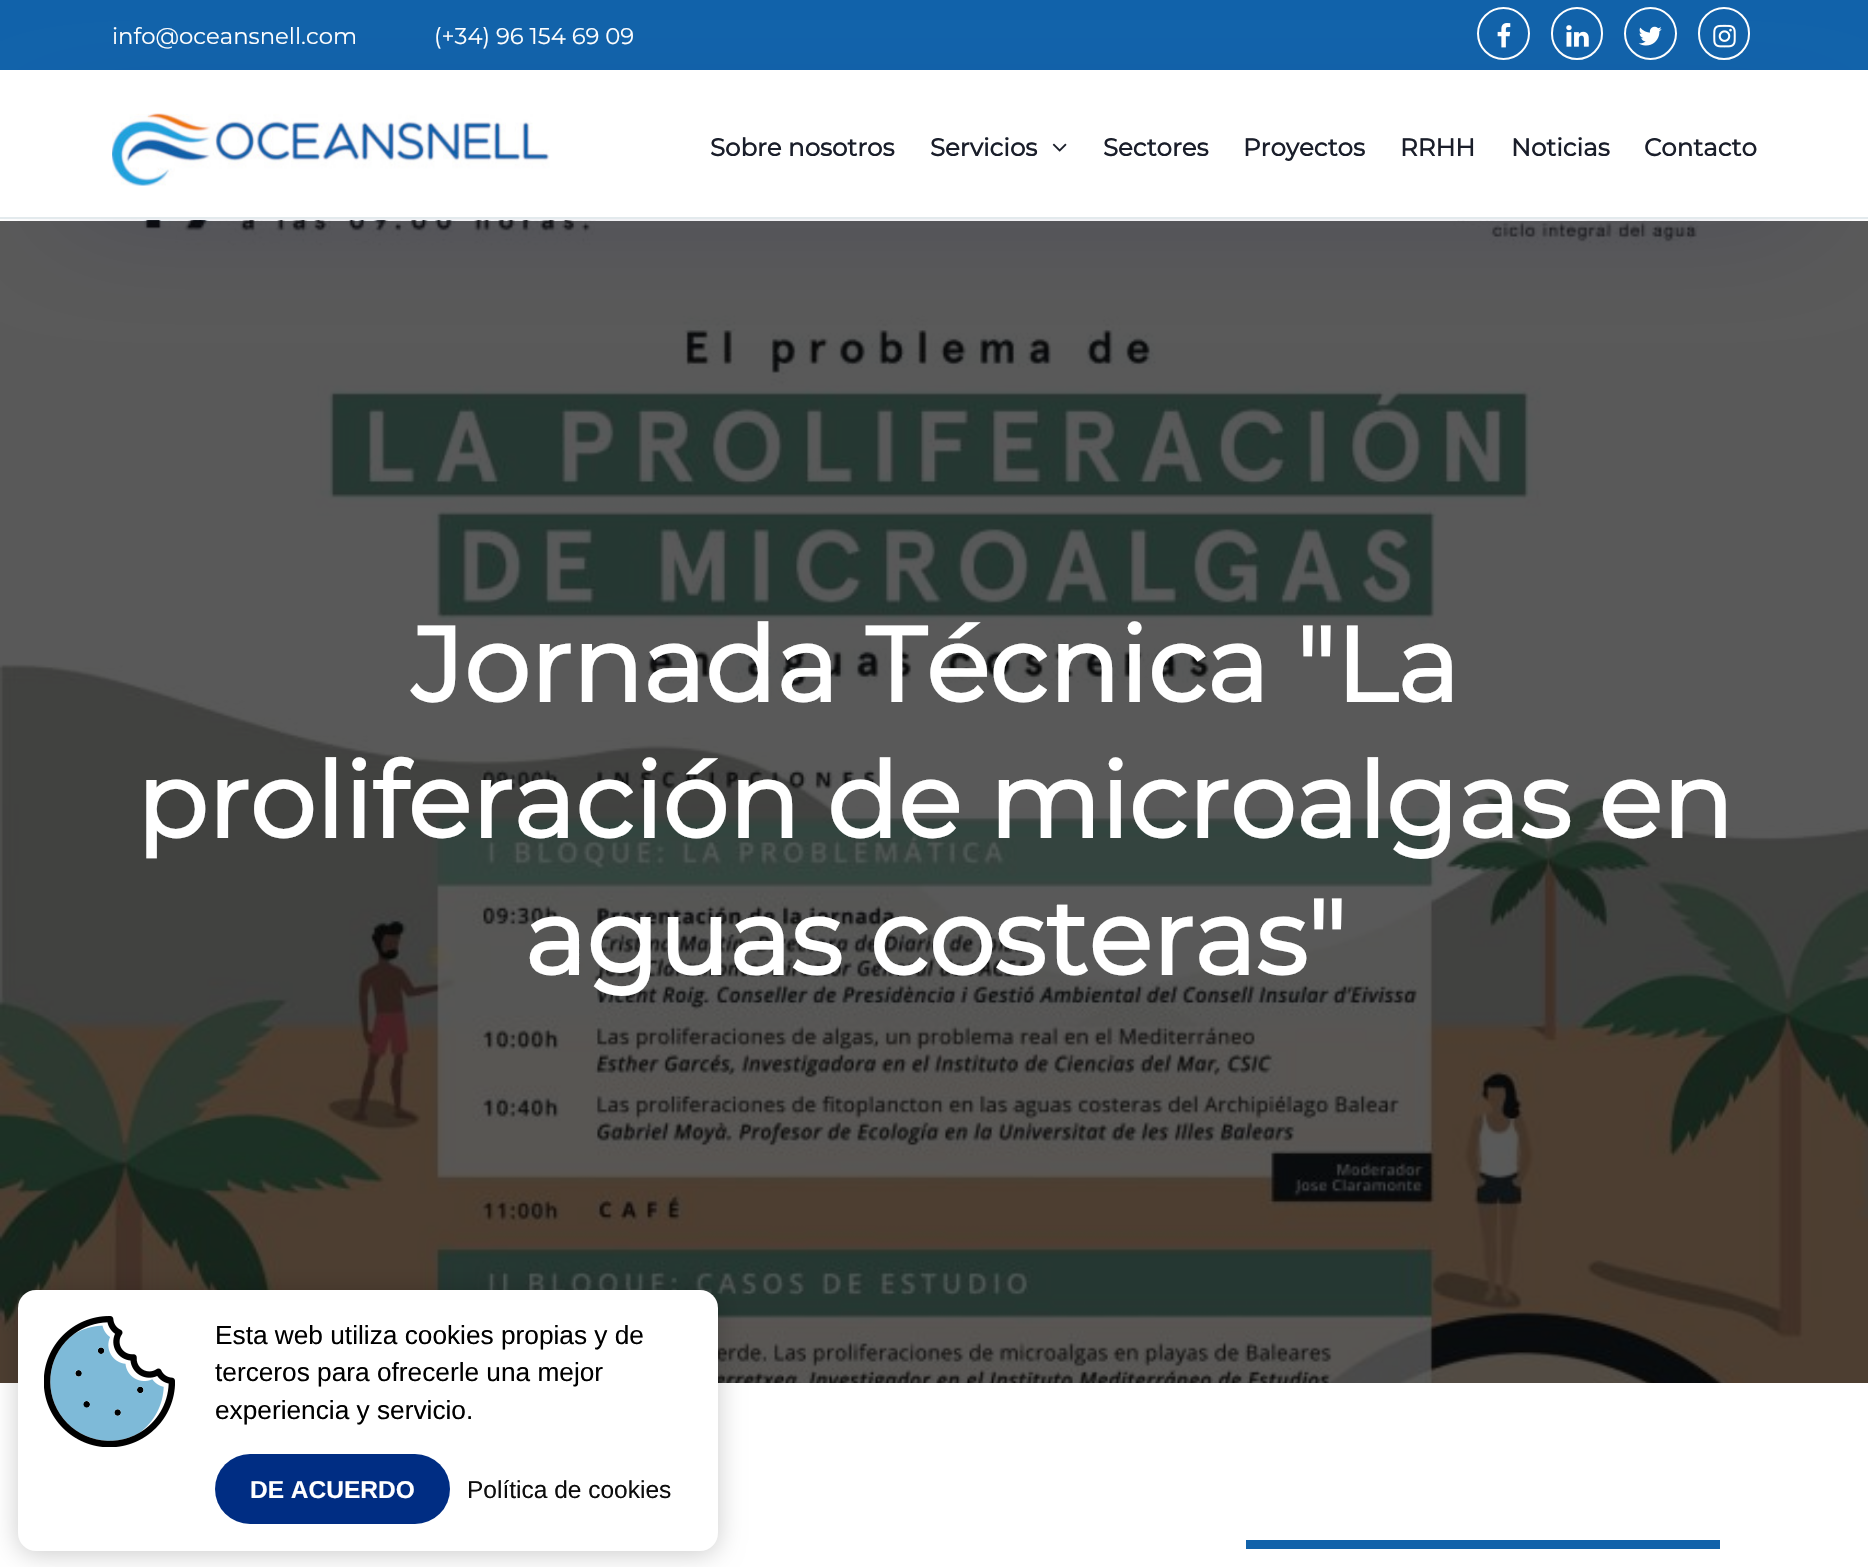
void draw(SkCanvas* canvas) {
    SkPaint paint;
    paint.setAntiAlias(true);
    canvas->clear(0xFFFFFFFF);
    paint.setColor(0xFF1162AA);
    canvas->drawRect(SkRect::MakeXYWH(0, 0, 1868, 70), paint);
    SkFont font1(fontMgr->matchFamilyStyle("Montserrat", SkFontStyle(100, SkFontStyle::kNormal_Width, SkFontStyle::kUpright_Slant)), 22.75f);
    font1.setSubpixel(true);
    paint.setColor(0xFFFFFFFF);
    canvas->drawString("info@oceansnell.com", 112, 44, font1, paint);
    canvas->drawString("(+34) 96 154 69 09", 434, 44, font1, paint);
    paint.setStyle(SkPaint::kStroke_Style);
    paint.setStrokeWidth(2);
    canvas->drawCircle(1503.5f, 33.5f, 25.5f, paint);
    canvas->drawImageRect(SkImages::DeferredFromEncodedData(SkData::MakeFromFileName("img1.png")), SkRect::MakeXYWH(1497, 23, 14, 25), SkSamplingOptions());
    canvas->drawRoundRect(SkRect::MakeXYWH(1552, 8, 50, 51), 25, 25, paint);
    canvas->drawImageRect(SkImages::DeferredFromEncodedData(SkData::MakeFromFileName("img2.png")), SkRect::MakeXYWH(1566, 25, 23, 22), SkSamplingOptions());
    canvas->drawCircle(1650.5f, 33.5f, 25.5f, paint);
    canvas->drawImageRect(SkImages::DeferredFromEncodedData(SkData::MakeFromFileName("img3.png")), SkRect::MakeXYWH(1638, 26, 24, 20), SkSamplingOptions());
    canvas->drawRoundRect(SkRect::MakeXYWH(1699, 8, 50, 51), 25, 25, paint);
    canvas->drawImageRect(SkImages::DeferredFromEncodedData(SkData::MakeFromFileName("img4.png")), SkRect::MakeXYWH(1713, 24, 23, 24), SkSamplingOptions());
    canvas->drawImageRect(SkImages::DeferredFromEncodedData(SkData::MakeFromFileName("img7.png")), SkRect::MakeXYWH(0, 220, 1868, 1163), SkSamplingOptions());
    paint.setStyle(SkPaint::kFill_Style);
    paint.setColor(0x57121158);
    paint.setMaskFilter(SkMaskFilter::MakeBlur(kNormal_SkBlurStyle, 60.5f));
    canvas->drawRect(SkRect::MakeXYWH(58, 165, 1753, 33), paint);
    paint.setMaskFilter(nullptr);
    paint.setColor(0xFFFFFFFF);
    canvas->drawRect(SkRect::MakeXYWH(0, 70, 1868, 147), paint);
    paint.setColor(0xFFE3EAED);
    canvas->drawRect(SkRect::MakeXYWH(0, 217, 1868, 2), paint);
    canvas->drawImageRect(SkImages::DeferredFromEncodedData(SkData::MakeFromFileName("img5.png")), SkRect::MakeXYWH(112, 113, 438, 73), SkSamplingOptions());
    SkFont font2(fontMgr->matchFamilyStyle("Montserrat", SkFontStyle::Bold()), 24.5f);
    font2.setSubpixel(true);
    paint.setColor(0xFF1A1E2A);
    canvas->drawString("Sobre nosotros", 710, 156, font2, paint);
    canvas->drawString("Servicios", 930, 156, font2, paint);
    canvas->drawImageRect(SkImages::DeferredFromEncodedData(SkData::MakeFromFileName("img6.png")), SkRect::MakeXYWH(1052, 143, 15, 9), SkSamplingOptions());
    canvas->drawString("Sectores", 1103, 156, font2, paint);
    canvas->drawString("Proyectos", 1243, 156, font2, paint);
    canvas->drawString("RRHH", 1400, 156, font2, paint);
    canvas->drawString("Noticias", 1511, 156, font2, paint);
    canvas->drawString("Contacto", 1644, 156, font2, paint);
    SkFont font3(fontMgr->matchFamilyStyle("Montserrat", SkFontStyle::Bold()), 105);
    font3.setSubpixel(true);
    paint.setColor(0xFFFFFFFF);
    canvas->drawString("Jornada Técnica \"La", 411, 702, font3, paint);
    canvas->drawString("proliferación de microalgas en", 136, 838, font3, paint);
    canvas->drawString("aguas costeras\"", 524, 975, font3, paint);
    paint.setColor(0xFF1162AA);
    canvas->drawRect(SkRect::MakeXYWH(1246, 1540, 474, 9), paint);
    paint.setColor(0x33000000);
    paint.setMaskFilter(SkMaskFilter::MakeBlur(kNormal_SkBlurStyle, 13));
    canvas->drawRoundRect(SkRect::MakeXYWH(18, 1293, 700, 261), 18, 18, paint);
    paint.setMaskFilter(nullptr);
    paint.setColor(0xFFFFFFFF);
    canvas->drawRoundRect(SkRect::MakeXYWH(18, 1290, 700, 261), 18, 18, paint);
    canvas->drawImageRect(SkImages::DeferredFromEncodedData(SkData::MakeFromFileName("img8.png")), SkRect::MakeXYWH(44, 1316, 131, 131), SkSamplingOptions());
    SkFont font4(fontMgr->matchFamilyStyle("Liberation Sans", SkFontStyle::Normal()), 26.25f);
    font4.setSubpixel(true);
    paint.setColor(0xFF000000);
    canvas->drawString("Esta web utiliza cookies propias y de", 215, 1344, font4, paint);
    canvas->drawString("terceros para ofrecerle una mejor", 215, 1381, font4, paint);
    canvas->drawString("experiencia y servicio.", 215, 1419, font4, paint);
    paint.setColor(0xFF002D83);
    canvas->drawRoundRect(SkRect::MakeXYWH(215, 1454, 235, 70), 35, 35, paint);
    SkFont font5(fontMgr->matchFamilyStyle("Liberation Sans", SkFontStyle::Bold()), 24.5f);
    font5.setSubpixel(true);
    paint.setColor(0xFFFFFFFF);
    canvas->drawString("DE ACUERDO", 250, 1498, font5, paint);
    SkFont font6(fontMgr->matchFamilyStyle("Liberation Sans", SkFontStyle::Normal()), 24.5f);
    font6.setSubpixel(true);
    paint.setColor(0xFF0D0D0D);
    canvas->drawString("Política de cookies", 467, 1498, font6, paint);
}
